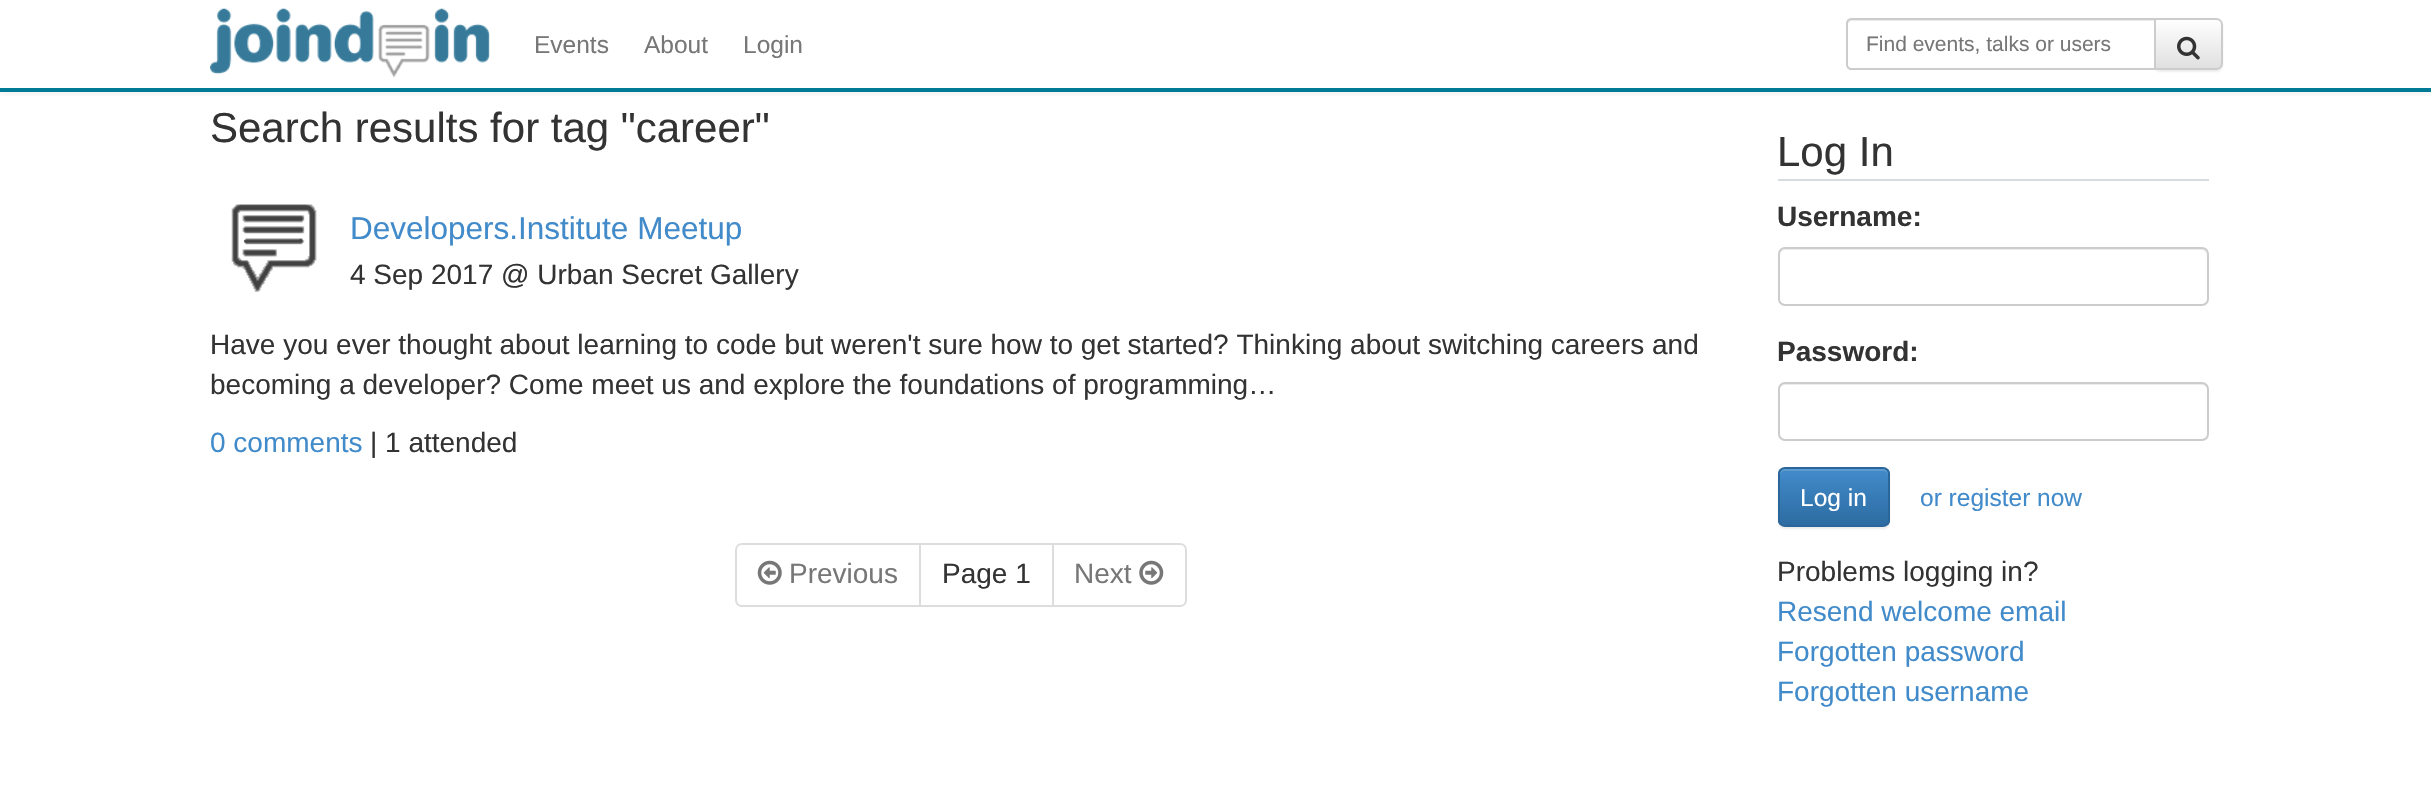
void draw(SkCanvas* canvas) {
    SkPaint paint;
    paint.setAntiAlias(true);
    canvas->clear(0xFFFFFFFF);
    canvas->save();
    canvas->clipRect(SkRect::MakeXYWH(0, 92, 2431, 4));
    paint.setColor(0x12000000);
    paint.setMaskFilter(SkMaskFilter::MakeBlur(kNormal_SkBlurStyle, 4.5f));
    canvas->drawRect(SkRect::MakeXYWH(0, 2, 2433, 91), paint);
    paint.setMaskFilter(nullptr);
    canvas->restore();
    paint.setColor(0xFF007B97);
    canvas->drawRect(SkRect::MakeXYWH(0, 88, 2431, 4), paint);
    canvas->drawImageRect(SkImages::DeferredFromEncodedData(SkData::MakeFromFileName("img1.png")), SkRect::MakeXYWH(210, 8, 280, 70), SkSamplingOptions());
    SkFont font1(fontMgr->matchFamilyStyle("Liberation Sans", SkFontStyle::Normal()), 24.5f);
    font1.setSubpixel(true);
    paint.setColor(0xFF777777);
    canvas->drawString("Events", 534, 53, font1, paint);
    canvas->drawString("About", 644, 53, font1, paint);
    canvas->drawString("Login", 743, 53, font1, paint);
    paint.setColor(0x12000000);
    paint.setMaskFilter(SkMaskFilter::MakeBlur(kNormal_SkBlurStyle, 1));
    canvas->drawRoundRect(SkRect::MakeXYWH(2154, 19, 69, 53), 7, 7, paint);
    paint.setMaskFilter(nullptr);
    canvas->save();
    canvas->clipPath(SkPathBuilder().moveTo(2154, 18).lineTo(2216, 18).cubicTo(2220, 18, 2223, 21, 2223, 25).lineTo(2223, 63).cubicTo(2223, 67, 2220, 70, 2216, 70).lineTo(2154, 70).close().detach(), true);
    {
        const SkColor colors[] = {0xFFFFFFFF, 0xFFE0E0E0};
        const float stops[] = {0, 1};
        const SkPoint ends[] = {{2188, 19}, {2188, 68}};
        paint.setShader(SkGradientShader::MakeLinear(ends, colors, stops, 2, SkTileMode::kClamp));
        paint.setAlpha(255);
    }
    canvas->drawRect(SkRect::MakeXYWH(2156, 19, 67, 49), paint);
    canvas->restore();
    paint.setStyle(SkPaint::kStroke_Style);
    paint.setStrokeWidth(2);
    paint.setShader(nullptr);
    paint.setColor(0xFFCCCCCC);
    canvas->drawPath(SkPathBuilder().moveTo(2155, 19).lineTo(2216, 19).cubicTo(2219.5f, 19, 2222, 21.5f, 2222, 25).lineTo(2222, 63).cubicTo(2222, 66.5f, 2219.5f, 69, 2216, 69).lineTo(2155, 69).close().detach(), paint);
    paint.setStyle(SkPaint::kFill_Style);
    paint.setColor(0xFFFFFFFF);
    canvas->drawPath(SkPathBuilder().moveTo(1851, 18).lineTo(2156, 18).lineTo(2156, 70).lineTo(1851, 70).cubicTo(1848, 70, 1846, 68, 1846, 65).lineTo(1846, 23).cubicTo(1846, 20, 1848, 18, 1851, 18).close().detach(), paint);
    paint.setColor(0xFFECECEC);
    canvas->drawPath(SkPathBuilder().moveTo(1852, 21).lineTo(2154, 21).lineTo(2154, 19).lineTo(1852, 19).cubicTo(1850, 19, 1848, 21, 1848, 23).lineTo(1848, 24).cubicTo(1848, 23, 1850, 21, 1852, 21).close().detach(), paint);
    paint.setStyle(SkPaint::kStroke_Style);
    paint.setColor(0xFFCCCCCC);
    canvas->drawPath(SkPathBuilder().moveTo(1851, 19).lineTo(2155, 19).lineTo(2155, 69).lineTo(1851, 69).cubicTo(1849, 69, 1847, 67, 1847, 65).lineTo(1847, 23).cubicTo(1847, 21, 1849, 19, 1851, 19).close().detach(), paint);
    SkFont font2(fontMgr->matchFamilyStyle("Liberation Sans", SkFontStyle::Normal()), 21);
    font2.setSubpixel(true);
    paint.setStyle(SkPaint::kFill_Style);
    paint.setColor(0xFF777777);
    canvas->drawString("Find events, talks or users", 1866, 51, font2, paint);
    canvas->drawImageRect(SkImages::DeferredFromEncodedData(SkData::MakeFromFileName("img2.png")), SkRect::MakeXYWH(2177, 36, 23, 24), SkSamplingOptions());
    SkFont font3(fontMgr->matchFamilyStyle("Liberation Sans", SkFontStyle::Normal()), 42);
    font3.setSubpixel(true);
    paint.setColor(0xFF333333);
    canvas->drawString("Search results for tag \"career\"", 210, 142, font3, paint);
    canvas->drawImageRect(SkImages::DeferredFromEncodedData(SkData::MakeFromFileName("img3.png")), SkRect::MakeXYWH(231, 204, 86, 88), SkSamplingOptions());
    SkFont font4(fontMgr->matchFamilyStyle("Liberation Sans", SkFontStyle::Normal()), 31.5f);
    font4.setSubpixel(true);
    paint.setColor(0xFF428BCA);
    canvas->drawString("Developers.Institute Meetup", 350, 239, font4, paint);
    SkFont font5(fontMgr->matchFamilyStyle("Liberation Sans", SkFontStyle::Normal()), 28);
    font5.setSubpixel(true);
    paint.setColor(0xFF333333);
    canvas->drawString("4 Sep 2017 @ Urban Secret Gallery", 350, 284, font5, paint);
    canvas->drawString("Have you ever thought about learning to code but weren't sure how to get started? Thinking about switching careers and", 210, 354, font5, paint);
    canvas->drawString("becoming a developer? Come meet us and explore the foundations of programming…", 210, 394, font5, paint);
    paint.setColor(0xFF428BCA);
    canvas->drawString("0 comments", 210, 452, font5, paint);
    paint.setColor(0xFF333333);
    canvas->drawString("| 1 attended", 370, 452, font5, paint);
    paint.setStyle(SkPaint::kStroke_Style);
    paint.setColor(0xFFDDDDDD);
    canvas->drawPath(SkPathBuilder().moveTo(742, 544).lineTo(920, 544).lineTo(920, 606).lineTo(742, 606).cubicTo(738.5f, 606, 736, 603.5f, 736, 600).lineTo(736, 550).cubicTo(736, 546.5f, 738.5f, 544, 742, 544).close().detach(), paint);
    canvas->drawImageRect(SkImages::DeferredFromEncodedData(SkData::MakeFromFileName("img4.png")), SkRect::MakeXYWH(757, 560, 25, 25), SkSamplingOptions());
    paint.setStyle(SkPaint::kFill_Style);
    paint.setColor(0xFF777777);
    canvas->drawString("Previous", 789, 583, font5, paint);
    paint.setStyle(SkPaint::kStroke_Style);
    paint.setColor(0xFFDDDDDD);
    canvas->drawRect(SkRect::MakeXYWH(920, 544, 133, 62), paint);
    paint.setStyle(SkPaint::kFill_Style);
    paint.setColor(0xFF333333);
    canvas->drawString("Page 1", 942, 583, font5, paint);
    paint.setColor(0xFFFFFFFF);
    canvas->drawPath(SkPathBuilder().moveTo(1053, 544).lineTo(1180, 544).cubicTo(1183.5f, 544, 1186, 546.5f, 1186, 550).lineTo(1186, 600).cubicTo(1186, 603.5f, 1183.5f, 606, 1180, 606).lineTo(1053, 606).close().detach(), paint);
    paint.setStyle(SkPaint::kStroke_Style);
    paint.setColor(0xFFDDDDDD);
    canvas->drawPath(SkPathBuilder().moveTo(1053, 544).lineTo(1180, 544).cubicTo(1183.5f, 544, 1186, 546.5f, 1186, 550).lineTo(1186, 600).cubicTo(1186, 603.5f, 1183.5f, 606, 1180, 606).lineTo(1053, 606).close().detach(), paint);
    paint.setStyle(SkPaint::kFill_Style);
    paint.setColor(0xFF777777);
    canvas->drawString("Next", 1074, 583, font5, paint);
    canvas->drawImageRect(SkImages::DeferredFromEncodedData(SkData::MakeFromFileName("img5.png")), SkRect::MakeXYWH(1139, 560, 25, 25), SkSamplingOptions());
    paint.setColor(0xFFD7DCDF);
    canvas->drawRect(SkRect::MakeXYWH(1778, 179, 431, 2), paint);
    paint.setColor(0xFF333333);
    canvas->drawString("Log In", 1777, 166, font3, paint);
    SkFont font6(fontMgr->matchFamilyStyle("Liberation Sans", SkFontStyle::Bold()), 28);
    font6.setSubpixel(true);
    canvas->drawString("Username:", 1777, 226, font6, paint);
    paint.setColor(0xFFECECEC);
    canvas->drawPath(SkPathBuilder().moveTo(1785, 250).lineTo(2202, 250).cubicTo(2204, 250, 2207, 253, 2207, 256).cubicTo(2207, 253, 2206, 249, 2202, 249).lineTo(1785, 249).cubicTo(1781, 249, 1780, 253, 1780, 256).cubicTo(1780, 253, 1782, 250, 1785, 250).close().detach(), paint);
    paint.setStyle(SkPaint::kStroke_Style);
    paint.setColor(0xFFCCCCCC);
    canvas->drawRoundRect(SkRect::MakeXYWH(1779, 248, 429, 57), 6, 6, paint);
    paint.setStyle(SkPaint::kFill_Style);
    paint.setColor(0xFF333333);
    canvas->drawString("Password:", 1777, 361, font6, paint);
    paint.setColor(0xFFECECEC);
    canvas->drawPath(SkPathBuilder().moveTo(1785, 385).lineTo(2202, 385).cubicTo(2204, 385, 2207, 387, 2207, 390).cubicTo(2207, 387, 2206, 383, 2202, 383).lineTo(1785, 383).cubicTo(1781, 383, 1780, 387, 1780, 390).cubicTo(1780, 387, 1782, 385, 1785, 385).close().detach(), paint);
    paint.setStyle(SkPaint::kStroke_Style);
    paint.setColor(0xFFCCCCCC);
    canvas->drawRoundRect(SkRect::MakeXYWH(1779, 383, 429, 57), 6, 6, paint);
    paint.setStyle(SkPaint::kFill_Style);
    paint.setColor(0x12000000);
    paint.setMaskFilter(SkMaskFilter::MakeBlur(kNormal_SkBlurStyle, 1));
    canvas->drawRoundRect(SkRect::MakeXYWH(1778, 469, 112, 60), 7, 7, paint);
    paint.setMaskFilter(nullptr);
    canvas->save();
    canvas->clipPath(SkPathBuilder().moveTo(1785, 467).lineTo(1883, 467).cubicTo(1887, 467, 1890, 470, 1890, 474).lineTo(1890, 520).cubicTo(1890, 524, 1887, 527, 1883, 527).lineTo(1785, 527).cubicTo(1781, 527, 1778, 524, 1778, 520).lineTo(1778, 474).cubicTo(1778, 470, 1781, 467, 1785, 467).close().detach(), true);
    {
        const SkColor colors[] = {0xFF428BCA, 0xFF2D6CA2};
        const float stops[] = {0, 1};
        const SkPoint ends[] = {{1834, 469}, {1834, 525}};
        paint.setShader(SkGradientShader::MakeLinear(ends, colors, stops, 2, SkTileMode::kClamp));
        paint.setAlpha(255);
    }
    canvas->drawRect(SkRect::MakeXYWH(1778, 469, 112, 56), paint);
    canvas->restore();
    paint.setShader(nullptr);
    paint.setColor(0x26FFFFFF);
    canvas->drawPath(SkPathBuilder().moveTo(1785, 471).lineTo(1883, 471).cubicTo(1886, 471, 1888, 473, 1888, 476).lineTo(1888, 474).cubicTo(1888, 471, 1886, 469, 1883, 469).lineTo(1785, 469).cubicTo(1782, 469, 1780, 471, 1780, 474).lineTo(1780, 476).cubicTo(1780, 473, 1782, 471, 1785, 471).close().detach(), paint);
    paint.setStyle(SkPaint::kStroke_Style);
    paint.setColor(0xFF2B669A);
    canvas->drawRoundRect(SkRect::MakeXYWH(1779, 468, 110, 58), 6, 6, paint);
    paint.setStyle(SkPaint::kFill_Style);
    paint.setColor(0xFFFFFFFF);
    canvas->drawString("Log in", 1800, 506, font1, paint);
    paint.setColor(0xFF428BCA);
    canvas->drawString("or register now", 1920, 506, font1, paint);
    paint.setColor(0xFF333333);
    canvas->drawString("Problems logging in?", 1777, 581, font5, paint);
    paint.setColor(0xFF428BCA);
    canvas->drawString("Resend welcome email", 1777, 621, font5, paint);
    canvas->drawString("Forgotten password", 1777, 661, font5, paint);
    canvas->drawString("Forgotten username", 1777, 701, font5, paint);
}
